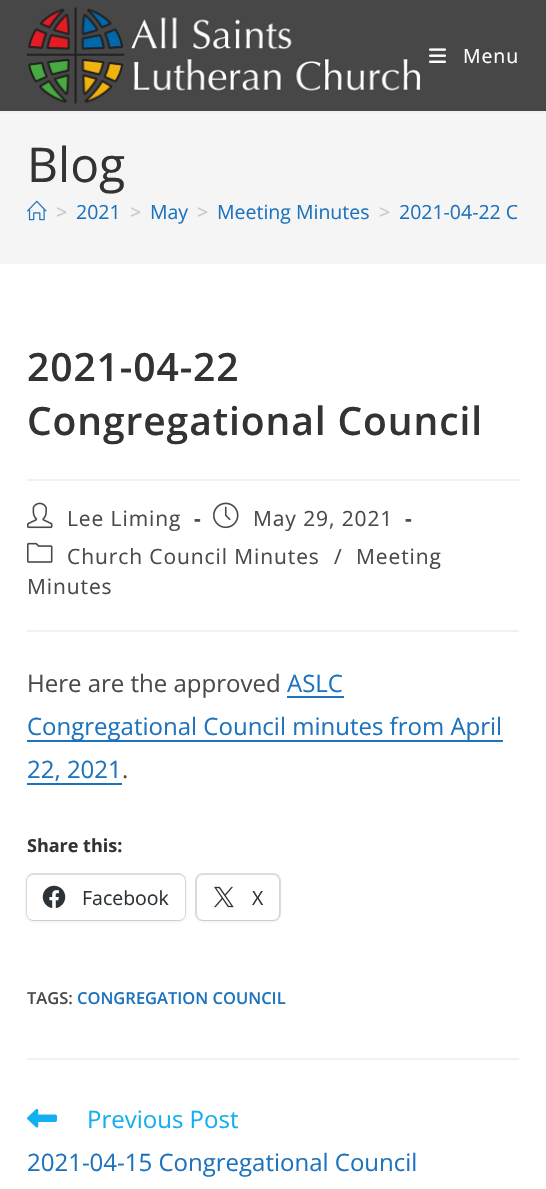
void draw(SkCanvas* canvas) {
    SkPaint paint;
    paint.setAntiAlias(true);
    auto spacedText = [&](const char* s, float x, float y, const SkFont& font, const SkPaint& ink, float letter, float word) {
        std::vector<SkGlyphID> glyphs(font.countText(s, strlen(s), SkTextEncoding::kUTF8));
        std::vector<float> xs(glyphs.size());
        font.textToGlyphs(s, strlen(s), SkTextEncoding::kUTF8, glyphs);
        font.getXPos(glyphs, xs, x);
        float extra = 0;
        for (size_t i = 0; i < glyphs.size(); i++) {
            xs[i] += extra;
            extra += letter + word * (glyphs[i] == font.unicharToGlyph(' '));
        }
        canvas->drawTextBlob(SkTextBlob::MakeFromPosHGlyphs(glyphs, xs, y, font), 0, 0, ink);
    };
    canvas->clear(0xFFFFFFFF);
    paint.setColor(0xFF474747);
    canvas->drawRect(SkRect::MakeXYWH(0, 0, 546, 111), paint);
    paint.setColor(0xFFF1F1F1);
    canvas->drawRect(SkRect::MakeXYWH(0, 111, 546, 2), paint);
    canvas->drawImageRect(SkImages::DeferredFromEncodedData(SkData::MakeFromFileName("img1.png")), SkRect::MakeXYWH(27, 7, 394, 97), SkSamplingOptions());
    canvas->drawImageRect(SkImages::DeferredFromEncodedData(SkData::MakeFromFileName("img2.png")), SkRect::MakeXYWH(429, 48, 17, 15), SkSamplingOptions());
    SkFont font1(fontMgr->matchFamilyStyle("Open Sans", SkFontStyle::Normal()), 19.5f);
    font1.setSubpixel(true);
    paint.setColor(0xFFFFFFFF);
    spacedText("Menu", 463, 63, font1, paint, 0.9f, 0);
    paint.setColor(0xFFF5F5F5);
    canvas->drawRect(SkRect::MakeXYWH(0, 113, 546, 151), paint);
    SkFont font2(fontMgr->matchFamilyStyle("Open Sans", SkFontStyle::Normal()), 48);
    font2.setSubpixel(true);
    paint.setColor(0xFF333333);
    canvas->drawString("Blog", 27, 182, font2, paint);
    canvas->drawImageRect(SkImages::DeferredFromEncodedData(SkData::MakeFromFileName("img3.png")), SkRect::MakeXYWH(27, 200, 20, 21), SkSamplingOptions());
    paint.setColor(0xFFC6C6C6);
    canvas->drawString(">", 56, 219, font1, paint);
    paint.setColor(0xFF1E73BE);
    canvas->drawString("2021", 76, 219, font1, paint);
    paint.setColor(0xFFC6C6C6);
    canvas->drawString(">", 130, 219, font1, paint);
    paint.setColor(0xFF1E73BE);
    canvas->drawString("May", 150, 219, font1, paint);
    paint.setColor(0xFFC6C6C6);
    canvas->drawString(">", 197, 219, font1, paint);
    paint.setColor(0xFF1E73BE);
    canvas->drawString("Meeting Minutes", 217, 219, font1, paint);
    paint.setColor(0xFFC6C6C6);
    canvas->drawString(">", 379, 219, font1, paint);
    paint.setColor(0xFF1E73BE);
    canvas->drawString("2021-04-22 C", 399, 219, font1, paint);
    paint.setColor(0xFFF1F1F1);
    canvas->drawRect(SkRect::MakeXYWH(27, 479, 492, 2), paint);
    SkFont font3(fontMgr->matchFamilyStyle("Open Sans", SkFontStyle(600, SkFontStyle::kNormal_Width, SkFontStyle::kUpright_Slant)), 39);
    font3.setSubpixel(true);
    paint.setColor(0xFF333333);
    spacedText("2021-04-22", 27, 381, font3, paint, 0.9f, 0);
    spacedText("Congregational Council", 27, 435, font3, paint, 0.9f, 0);
    paint.setColor(0xFFF1F1F1);
    canvas->drawRect(SkRect::MakeXYWH(27, 630, 492, 2), paint);
    canvas->drawImageRect(SkImages::DeferredFromEncodedData(SkData::MakeFromFileName("img4.png")), SkRect::MakeXYWH(27, 502, 26, 27), SkSamplingOptions());
    SkFont font4(fontMgr->matchFamilyStyle("Open Sans", SkFontStyle::Normal()), 21);
    font4.setSubpixel(true);
    paint.setColor(0xFF4A4A4A);
    spacedText("Lee Liming", 67, 526, font4, paint, 0.9f, 0);
    SkFont font5(fontMgr->matchFamilyStyle("Open Sans", SkFontStyle::Bold()), 21);
    font5.setSubpixel(true);
    spacedText("-", 194, 526, font5, paint, 0.9f, 0);
    canvas->drawImageRect(SkImages::DeferredFromEncodedData(SkData::MakeFromFileName("img5.png")), SkRect::MakeXYWH(213, 502, 26, 27), SkSamplingOptions());
    spacedText("May 29, 2021", 253, 526, font4, paint, 0.9f, 0);
    spacedText("-", 405, 526, font5, paint, 0.9f, 0);
    canvas->drawImageRect(SkImages::DeferredFromEncodedData(SkData::MakeFromFileName("img6.png")), SkRect::MakeXYWH(27, 542, 26, 21), SkSamplingOptions());
    spacedText("Church Council Minutes", 67, 564, font4, paint, 0.9f, 0);
    spacedText("/", 334, 564, font4, paint, 0.9f, 0);
    spacedText("Meeting", 356, 564, font4, paint, 0.9f, 0);
    spacedText("Minutes", 27, 594, font4, paint, 0.9f, 0);
    SkFont font6(fontMgr->matchFamilyStyle("Open Sans", SkFontStyle::Normal()), 24);
    font6.setSubpixel(true);
    canvas->drawString("Here are the approved", 27, 692, font6, paint);
    paint.setColor(0xFF1E73BE);
    canvas->drawString("ASLC", 287, 692, font6, paint);
    canvas->drawRect(SkRect::MakeXYWH(287, 696, 57, 2), paint);
    canvas->drawRect(SkRect::MakeXYWH(27, 740, 476, 2), paint);
    canvas->drawString("Congregational Council minutes from April", 27, 735, font6, paint);
    canvas->drawString("22, 2021", 27, 778, font6, paint);
    canvas->drawRect(SkRect::MakeXYWH(27, 783, 95, 2), paint);
    paint.setColor(0xFF4A4A4A);
    canvas->drawString(".", 122, 778, font6, paint);
    SkFont font7(fontMgr->matchFamilyStyle("Open Sans", SkFontStyle::Bold()), 18);
    font7.setSubpixel(true);
    paint.setColor(0xFF333333);
    canvas->drawString("Share this:", 27, 852, font7, paint);
    paint.setStyle(SkPaint::kStroke_Style);
    paint.setStrokeWidth(2);
    paint.setColor(0xFFE0E0E0);
    canvas->drawRoundRect(SkRect::MakeXYWH(27, 874, 158, 46), 7, 7, paint);
    paint.setStyle(SkPaint::kFill_Style);
    paint.setColor(0x1F000000);
    paint.setMaskFilter(SkMaskFilter::MakeBlur(kNormal_SkBlurStyle, 1.5f));
    canvas->drawRoundRect(SkRect::MakeXYWH(27, 876, 158, 45), 6, 6, paint);
    paint.setMaskFilter(nullptr);
    paint.setColor(0xFFFFFFFF);
    canvas->drawRoundRect(SkRect::MakeXYWH(27, 875, 158, 45), 6, 6, paint);
    canvas->drawImageRect(SkImages::DeferredFromEncodedData(SkData::MakeFromFileName("img7.png")), SkRect::MakeXYWH(42, 885, 24, 23), SkSamplingOptions());
    paint.setColor(0xFF2C3338);
    canvas->drawString("Facebook", 82, 905, font1, paint);
    paint.setStyle(SkPaint::kStroke_Style);
    paint.setColor(0xFFE0E0E0);
    canvas->drawRoundRect(SkRect::MakeXYWH(196, 874, 84, 46), 7, 7, paint);
    paint.setStyle(SkPaint::kFill_Style);
    paint.setColor(0x1F000000);
    paint.setMaskFilter(SkMaskFilter::MakeBlur(kNormal_SkBlurStyle, 1.5f));
    canvas->drawRoundRect(SkRect::MakeXYWH(197, 876, 82, 45), 6, 6, paint);
    paint.setMaskFilter(nullptr);
    paint.setColor(0xFFFFFFFF);
    canvas->drawRoundRect(SkRect::MakeXYWH(197, 875, 82, 45), 6, 6, paint);
    canvas->drawImageRect(SkImages::DeferredFromEncodedData(SkData::MakeFromFileName("img8.png")), SkRect::MakeXYWH(214, 886, 20, 22), SkSamplingOptions());
    paint.setColor(0xFF2C3338);
    canvas->drawString("X", 252, 905, font1, paint);
    SkFont font8(fontMgr->matchFamilyStyle("Open Sans", SkFontStyle(600, SkFontStyle::kNormal_Width, SkFontStyle::kUpright_Slant)), 16.5f);
    font8.setSubpixel(true);
    paint.setColor(0xFF4A4A4A);
    canvas->drawString("TAGS:", 27, 1004, font8, paint);
    paint.setColor(0xFF1E73BE);
    canvas->drawString("CONGREGATION COUNCIL", 77, 1004, font8, paint);
    paint.setColor(0xFFF1F1F1);
    canvas->drawRect(SkRect::MakeXYWH(27, 1058, 492, 2), paint);
    canvas->drawImageRect(SkImages::DeferredFromEncodedData(SkData::MakeFromFileName("img9.png")), SkRect::MakeXYWH(27, 1108, 30, 20), SkSamplingOptions());
    paint.setColor(0xFF13AFF0);
    canvas->drawString("Previous Post", 87, 1128, font6, paint);
    paint.setColor(0xFF1E73BE);
    canvas->drawString("2021-04-15 Congregational Council", 27, 1171, font6, paint);
}
